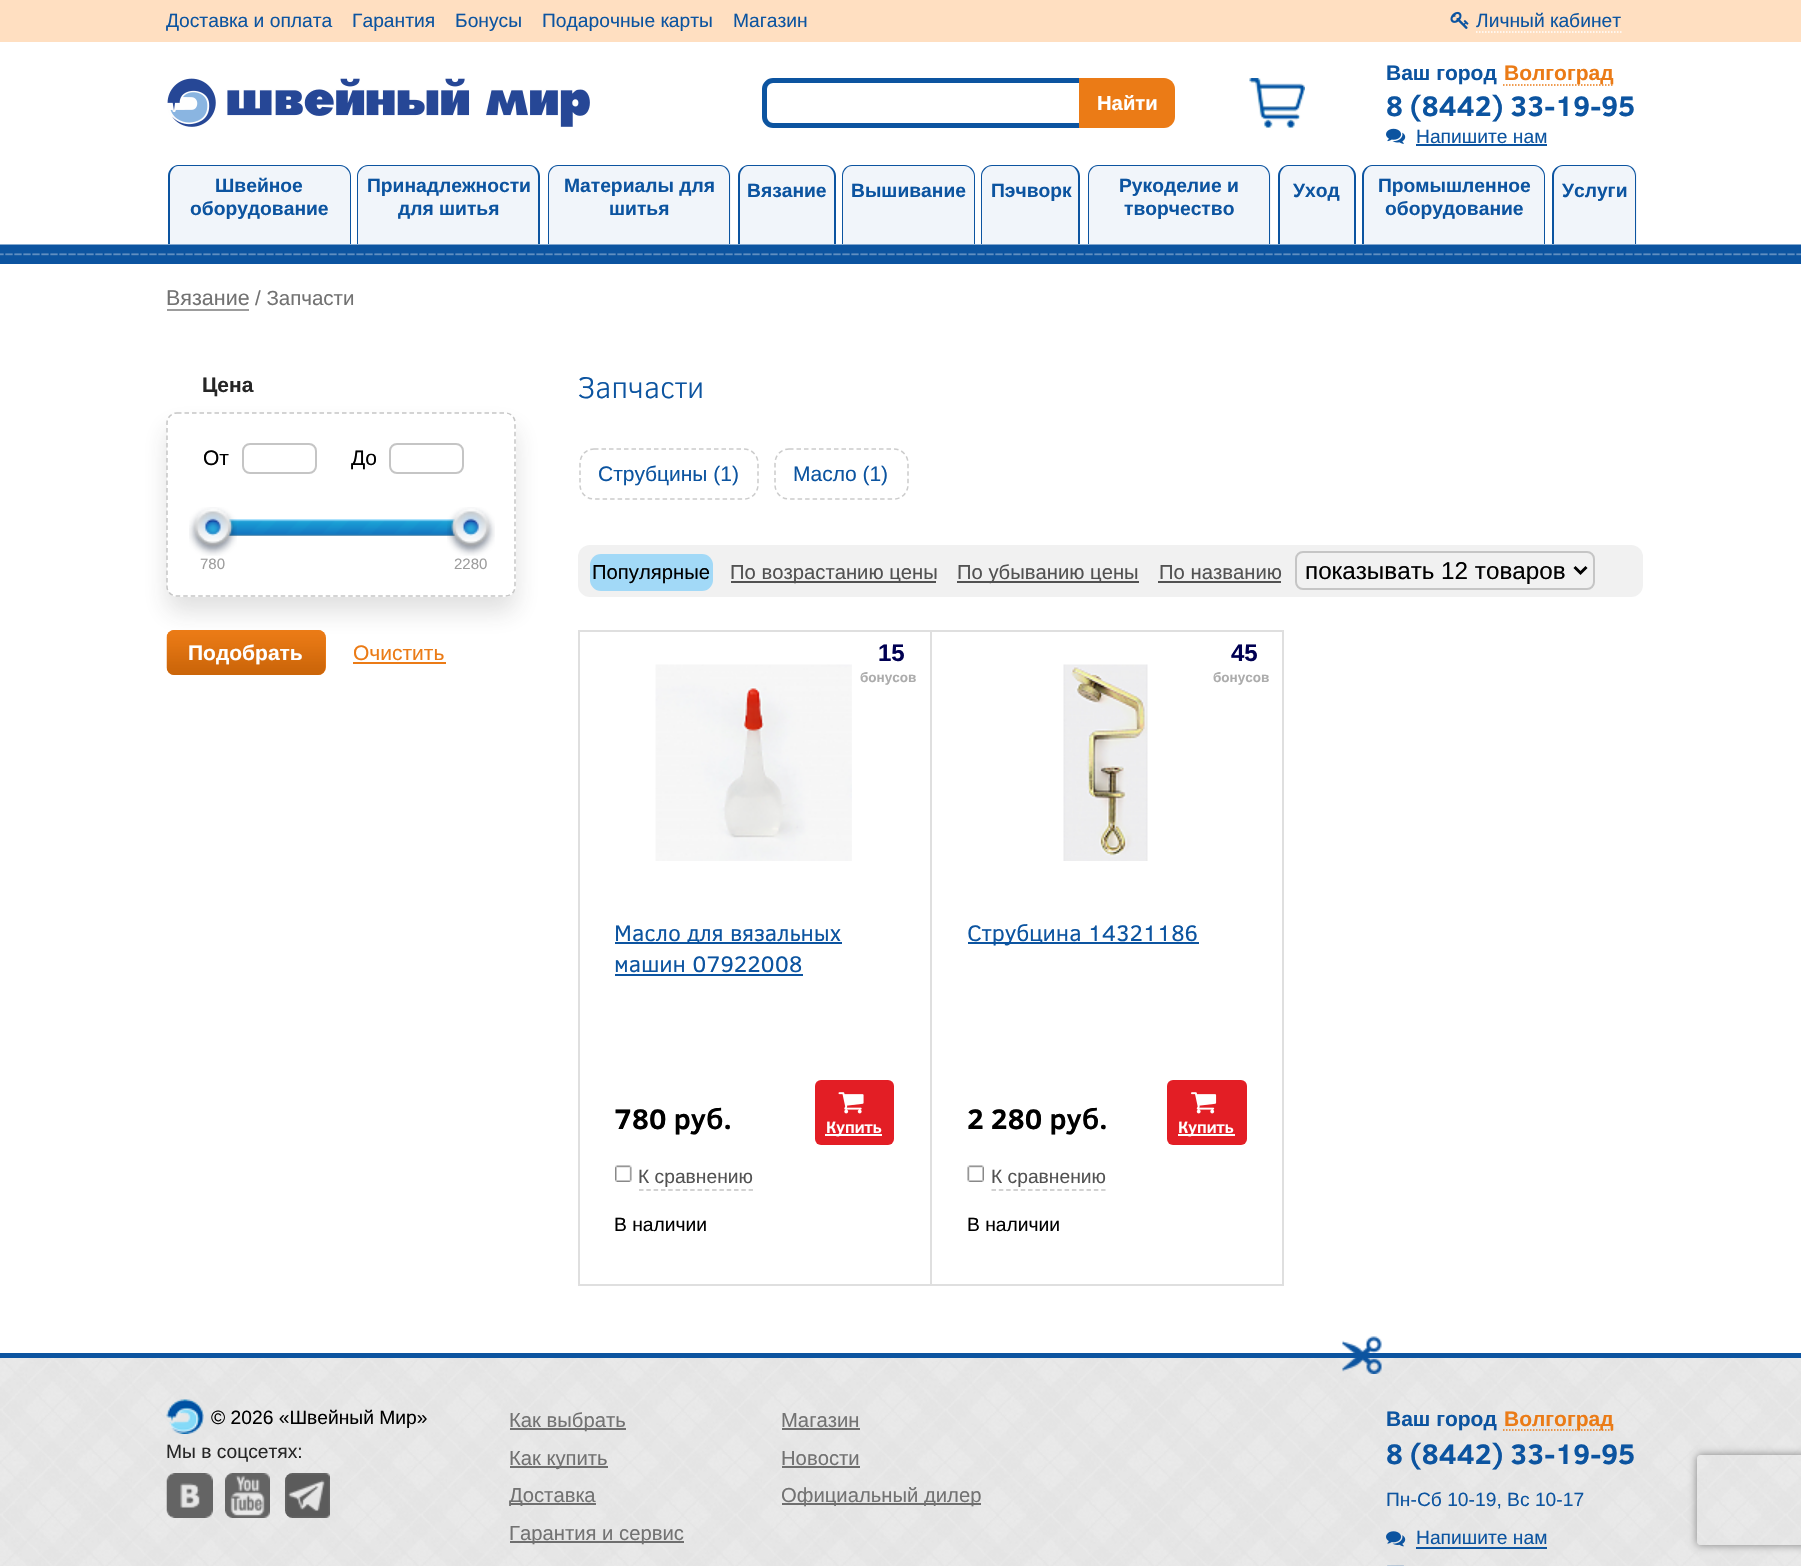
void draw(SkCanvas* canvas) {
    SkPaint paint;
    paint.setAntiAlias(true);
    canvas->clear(0xFFFFFFFF);
    paint.setColor(0xFFFFDFC1);
    canvas->drawRect(SkRect::MakeXYWH(0, 0, 1801, 42), paint);
    SkFont font1(fontMgr->matchFamilyStyle("Liberation Sans", SkFontStyle::Normal()), 19.25f);
    font1.setSubpixel(true);
    paint.setColor(0xFF0C54A0);
    canvas->drawString("Доставка и оплата", 166, 27, font1, paint);
    canvas->drawString("Гарантия", 352, 27, font1, paint);
    canvas->drawString("Бонусы", 455, 27, font1, paint);
    canvas->drawString("Подарочные карты", 542, 27, font1, paint);
    canvas->drawString("Магазин", 733, 27, font1, paint);
    canvas->drawImageRect(SkImages::DeferredFromEncodedData(SkData::MakeFromFileName("img1.png")), SkRect::MakeXYWH(1450, 11, 19, 18), SkSamplingOptions());
    canvas->drawString("Личный кабинет", 1476, 27, font1, paint);
    paint.setStyle(SkPaint::kStroke_Style);
    paint.setStrokeWidth(1.5f);
    paint.setColor(0xFFFFFFFF);
    paint.setPathEffect(SkDashPathEffect::Make({{1.5f, 1.5f}}, 0));
    canvas->drawPath(SkPathBuilder().moveTo(1476, 32).lineTo(1621.5f, 32).detach(), paint);
    paint.setPathEffect(nullptr);
    canvas->drawImageRect(SkImages::DeferredFromEncodedData(SkData::MakeFromFileName("img2.png")), SkRect::MakeXYWH(167, 78, 423, 49), SkSamplingOptions());
    paint.setStrokeWidth(5);
    paint.setColor(0xFF0C54A0);
    canvas->drawPath(SkPathBuilder().moveTo(773, 80.5f).lineTo(1082.5f, 80.5f).lineTo(1082.5f, 125.5f).lineTo(773, 125.5f).cubicTo(768.5f, 125.5f, 764.5f, 121.5f, 764.5f, 117).lineTo(764.5f, 89).cubicTo(764.5f, 84.5f, 768.5f, 80.5f, 773, 80.5f).close().detach(), paint);
    paint.setStyle(SkPaint::kFill_Style);
    paint.setColor(0xFFEB7B16);
    canvas->drawPath(SkPathBuilder().moveTo(1079, 78).lineTo(1164, 78).cubicTo(1170, 78, 1175, 83, 1175, 89).lineTo(1175, 117).cubicTo(1175, 123, 1170, 128, 1164, 128).lineTo(1079, 128).close().detach(), paint);
    SkFont font2(fontMgr->matchFamilyStyle("Liberation Sans", SkFontStyle::Bold()), 20.25f);
    font2.setSubpixel(true);
    paint.setColor(0xFFFFFFFF);
    canvas->drawString("Найти", 1097, 110, font2, paint);
    canvas->drawImageRect(SkImages::DeferredFromEncodedData(SkData::MakeFromFileName("img3.png")), SkRect::MakeXYWH(1249, 78, 56, 50), SkSamplingOptions());
    SkFont font3(fontMgr->matchFamilyStyle("Liberation Sans", SkFontStyle::Bold()), 21);
    font3.setSubpixel(true);
    paint.setColor(0xFF0C54A0);
    canvas->drawString("Ваш город", 1386, 80, font3, paint);
    paint.setStyle(SkPaint::kStroke_Style);
    paint.setStrokeWidth(1.5f);
    paint.setColor(0xFFEB7B16);
    paint.setPathEffect(SkDashPathEffect::Make({{1.5f, 1.5f}}, 0));
    canvas->drawPath(SkPathBuilder().moveTo(1503, 85).lineTo(1614, 85).detach(), paint);
    paint.setPathEffect(nullptr);
    paint.setStyle(SkPaint::kFill_Style);
    canvas->drawString("Волгоград", 1504, 80, font3, paint);
    SkFont font4(fontMgr->matchFamilyStyle("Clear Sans", SkFontStyle::Bold()), 28.75f);
    font4.setSubpixel(true);
    paint.setColor(0xFF0C54A0);
    canvas->drawString("8 (8442) 33-19-95", 1386, 116, font4, paint);
    canvas->drawImageRect(SkImages::DeferredFromEncodedData(SkData::MakeFromFileName("img4.png")), SkRect::MakeXYWH(1386, 128, 20, 16), SkSamplingOptions());
    canvas->drawString("Напишите нам", 1416, 143, font1, paint);
    canvas->drawRect(SkRect::MakeXYWH(1416, 144, 131, 2), paint);
    paint.setColor(0xFFF1F5FA);
    canvas->drawPath(SkPathBuilder().moveTo(179, 165).lineTo(340, 165).cubicTo(346, 165, 351, 170, 351, 176).lineTo(351, 245).lineTo(168, 245).lineTo(168, 176).cubicTo(168, 170, 173, 165, 179, 165).close().detach(), paint);
    paint.setColor(0xFF0C54A0);
    canvas->drawPath(SkPathBuilder(SkPathFillType::kEvenOdd).moveTo(178, 165).lineTo(340, 165).cubicTo(346, 165, 351, 170, 351, 176).lineTo(351, 244).lineTo(168, 244).lineTo(168, 176).cubicTo(168, 170, 173, 165, 178, 165).close().moveTo(178, 166).lineTo(340, 166).cubicTo(345, 166, 350, 171, 350, 176).lineTo(350, 244).lineTo(170, 244).lineTo(170, 176).cubicTo(170, 171, 174, 166, 178, 166).close().detach(), paint);
    SkFont font5(fontMgr->matchFamilyStyle("Liberation Sans", SkFontStyle::Bold()), 19.25f);
    font5.setSubpixel(true);
    canvas->drawString("Швейное", 215, 192, font5, paint);
    canvas->drawString("оборудование", 190, 215, font5, paint);
    paint.setColor(0xFFF1F5FA);
    canvas->drawPath(SkPathBuilder().moveTo(368, 165).lineTo(529, 165).cubicTo(535, 165, 540, 170, 540, 176).lineTo(540, 245).lineTo(357, 245).lineTo(357, 176).cubicTo(357, 170, 362, 165, 368, 165).close().detach(), paint);
    paint.setColor(0xFF0C54A0);
    canvas->drawPath(SkPathBuilder(SkPathFillType::kEvenOdd).moveTo(368, 165).lineTo(530, 165).cubicTo(535, 165, 540, 170, 540, 176).lineTo(540, 244).lineTo(357, 244).lineTo(357, 176).cubicTo(357, 170, 362, 165, 368, 165).close().moveTo(368, 166).lineTo(530, 166).cubicTo(534, 166, 538, 171, 538, 176).lineTo(538, 244).lineTo(358, 244).lineTo(358, 176).cubicTo(358, 171, 363, 166, 368, 166).close().detach(), paint);
    canvas->drawString("Принадлежности", 367, 192, font5, paint);
    canvas->drawString("для шитья", 398, 215, font5, paint);
    paint.setColor(0xFFF1F5FA);
    canvas->drawPath(SkPathBuilder().moveTo(559, 165).lineTo(720, 165).cubicTo(726, 165, 731, 170, 731, 176).lineTo(731, 245).lineTo(548, 245).lineTo(548, 176).cubicTo(548, 170, 553, 165, 559, 165).close().detach(), paint);
    paint.setColor(0xFF0C54A0);
    canvas->drawPath(SkPathBuilder(SkPathFillType::kEvenOdd).moveTo(558, 165).lineTo(720, 165).cubicTo(726, 165, 730, 170, 730, 176).lineTo(730, 244).lineTo(548, 244).lineTo(548, 176).cubicTo(548, 170, 552, 165, 558, 165).close().moveTo(558, 166).lineTo(720, 166).cubicTo(725, 166, 729, 171, 729, 176).lineTo(729, 244).lineTo(549, 244).lineTo(549, 176).cubicTo(549, 171, 553, 166, 558, 166).close().detach(), paint);
    canvas->drawString("Материалы для", 564, 192, font5, paint);
    canvas->drawString("шитья", 609, 215, font5, paint);
    paint.setColor(0xFFF1F5FA);
    canvas->drawPath(SkPathBuilder().moveTo(749, 165).lineTo(825, 165).cubicTo(831, 165, 836, 170, 836, 176).lineTo(836, 245).lineTo(738, 245).lineTo(738, 176).cubicTo(738, 170, 743, 165, 749, 165).close().detach(), paint);
    paint.setColor(0xFF0C54A0);
    canvas->drawPath(SkPathBuilder(SkPathFillType::kEvenOdd).moveTo(748, 165).lineTo(825, 165).cubicTo(831, 165, 836, 170, 836, 176).lineTo(836, 244).lineTo(738, 244).lineTo(738, 176).cubicTo(738, 170, 743, 165, 748, 165).close().moveTo(748, 166).lineTo(825, 166).cubicTo(830, 166, 834, 171, 834, 176).lineTo(834, 244).lineTo(740, 244).lineTo(740, 176).cubicTo(740, 171, 744, 166, 748, 166).close().detach(), paint);
    canvas->drawString("Вязание", 747, 197, font5, paint);
    paint.setColor(0xFFF1F5FA);
    canvas->drawPath(SkPathBuilder().moveTo(853, 165).lineTo(964, 165).cubicTo(970, 165, 975, 170, 975, 176).lineTo(975, 245).lineTo(842, 245).lineTo(842, 176).cubicTo(842, 170, 847, 165, 853, 165).close().detach(), paint);
    paint.setColor(0xFF0C54A0);
    canvas->drawPath(SkPathBuilder(SkPathFillType::kEvenOdd).moveTo(852, 165).lineTo(964, 165).cubicTo(970, 165, 975, 170, 975, 176).lineTo(975, 244).lineTo(842, 244).lineTo(842, 176).cubicTo(842, 170, 846, 165, 852, 165).close().moveTo(852, 166).lineTo(964, 166).cubicTo(969, 166, 974, 171, 974, 176).lineTo(974, 244).lineTo(843, 244).lineTo(843, 176).cubicTo(843, 171, 847, 166, 852, 166).close().detach(), paint);
    canvas->drawString("Вышивание", 851, 197, font5, paint);
    paint.setColor(0xFFF1F5FA);
    canvas->drawPath(SkPathBuilder().moveTo(992, 165).lineTo(1069, 165).cubicTo(1075, 165, 1080, 170, 1080, 176).lineTo(1080, 245).lineTo(981, 245).lineTo(981, 176).cubicTo(981, 170, 986, 165, 992, 165).close().detach(), paint);
    paint.setColor(0xFF0C54A0);
    canvas->drawPath(SkPathBuilder(SkPathFillType::kEvenOdd).moveTo(992, 165).lineTo(1070, 165).cubicTo(1075, 165, 1080, 170, 1080, 176).lineTo(1080, 244).lineTo(981, 244).lineTo(981, 176).cubicTo(981, 170, 986, 165, 992, 165).close().moveTo(992, 166).lineTo(1070, 166).cubicTo(1074, 166, 1078, 171, 1078, 176).lineTo(1078, 244).lineTo(982, 244).lineTo(982, 176).cubicTo(982, 171, 987, 166, 992, 166).close().detach(), paint);
    canvas->drawString("Пэчворк", 991, 197, font5, paint);
    paint.setColor(0xFFF1F5FA);
    canvas->drawPath(SkPathBuilder().moveTo(1099, 165).lineTo(1260, 165).cubicTo(1266, 165, 1271, 170, 1271, 176).lineTo(1271, 245).lineTo(1088, 245).lineTo(1088, 176).cubicTo(1088, 170, 1093, 165, 1099, 165).close().detach(), paint);
    paint.setColor(0xFF0C54A0);
    canvas->drawPath(SkPathBuilder(SkPathFillType::kEvenOdd).moveTo(1098, 165).lineTo(1260, 165).cubicTo(1266, 165, 1270, 170, 1270, 176).lineTo(1270, 244).lineTo(1088, 244).lineTo(1088, 176).cubicTo(1088, 170, 1092, 165, 1098, 165).close().moveTo(1098, 166).lineTo(1260, 166).cubicTo(1265, 166, 1269, 171, 1269, 176).lineTo(1269, 244).lineTo(1089, 244).lineTo(1089, 176).cubicTo(1089, 171, 1093, 166, 1098, 166).close().detach(), paint);
    canvas->drawString("Рукоделие и", 1119, 192, font5, paint);
    canvas->drawString("творчество", 1124, 215, font5, paint);
    paint.setColor(0xFFF1F5FA);
    canvas->drawPath(SkPathBuilder().moveTo(1289, 165).lineTo(1345, 165).cubicTo(1351, 165, 1356, 170, 1356, 176).lineTo(1356, 245).lineTo(1278, 245).lineTo(1278, 176).cubicTo(1278, 170, 1283, 165, 1289, 165).close().detach(), paint);
    paint.setColor(0xFF0C54A0);
    canvas->drawPath(SkPathBuilder(SkPathFillType::kEvenOdd).moveTo(1288, 165).lineTo(1346, 165).cubicTo(1351, 165, 1356, 170, 1356, 176).lineTo(1356, 244).lineTo(1278, 244).lineTo(1278, 176).cubicTo(1278, 170, 1283, 165, 1288, 165).close().moveTo(1288, 166).lineTo(1346, 166).cubicTo(1350, 166, 1354, 171, 1354, 176).lineTo(1354, 244).lineTo(1280, 244).lineTo(1280, 176).cubicTo(1280, 171, 1284, 166, 1288, 166).close().detach(), paint);
    canvas->drawString("Уход", 1293, 197, font5, paint);
    paint.setColor(0xFFF1F5FA);
    canvas->drawPath(SkPathBuilder().moveTo(1373, 165).lineTo(1534, 165).cubicTo(1540, 165, 1545, 170, 1545, 176).lineTo(1545, 245).lineTo(1362, 245).lineTo(1362, 176).cubicTo(1362, 170, 1367, 165, 1373, 165).close().detach(), paint);
    paint.setColor(0xFF0C54A0);
    canvas->drawPath(SkPathBuilder(SkPathFillType::kEvenOdd).moveTo(1372, 165).lineTo(1534, 165).cubicTo(1540, 165, 1545, 170, 1545, 176).lineTo(1545, 244).lineTo(1362, 244).lineTo(1362, 176).cubicTo(1362, 170, 1367, 165, 1372, 165).close().moveTo(1372, 166).lineTo(1534, 166).cubicTo(1539, 166, 1544, 171, 1544, 176).lineTo(1544, 244).lineTo(1364, 244).lineTo(1364, 176).cubicTo(1364, 171, 1368, 166, 1372, 166).close().detach(), paint);
    canvas->drawString("Промышленное", 1378, 192, font5, paint);
    canvas->drawString("оборудование", 1385, 215, font5, paint);
    paint.setColor(0xFFF1F5FA);
    canvas->drawPath(SkPathBuilder().moveTo(1564, 165).lineTo(1626, 165).cubicTo(1632, 165, 1637, 170, 1637, 176).lineTo(1637, 245).lineTo(1553, 245).lineTo(1553, 176).cubicTo(1553, 170, 1558, 165, 1564, 165).close().detach(), paint);
    paint.setColor(0xFF0C54A0);
    canvas->drawPath(SkPathBuilder(SkPathFillType::kEvenOdd).moveTo(1563, 165).lineTo(1626, 165).cubicTo(1632, 165, 1636, 170, 1636, 176).lineTo(1636, 244).lineTo(1552, 244).lineTo(1552, 176).cubicTo(1552, 170, 1557, 165, 1563, 165).close().moveTo(1563, 166).lineTo(1626, 166).cubicTo(1631, 166, 1635, 171, 1635, 176).lineTo(1635, 244).lineTo(1554, 244).lineTo(1554, 176).cubicTo(1554, 171, 1558, 166, 1563, 166).close().detach(), paint);
    canvas->drawString("Услуги", 1562, 197, font5, paint);
    canvas->drawImageRect(SkImages::DeferredFromEncodedData(SkData::MakeFromFileName("img5.png")), SkRect::MakeXYWH(0, 244, 1801, 20), SkSamplingOptions());
    SkFont font6(fontMgr->matchFamilyStyle("Liberation Sans", SkFontStyle::Normal()), 21.5f);
    font6.setSubpixel(true);
    paint.setColor(0xFF727272);
    canvas->drawString("Вязание", 166, 305, font6, paint);
    paint.setColor(0xFF9C9C9C);
    canvas->drawRect(SkRect::MakeXYWH(167, 309, 82, 2), paint);
    SkFont font7(fontMgr->matchFamilyStyle("Liberation Sans", SkFontStyle::Normal()), 20.5f);
    font7.setSubpixel(true);
    paint.setColor(0xFF727272);
    canvas->drawString("/ Запчасти", 255, 305, font7, paint);
    canvas->save();
    canvas->clipPath(SkPathBuilder(SkPathFillType::kEvenOdd).moveTo(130, 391).lineTo(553, 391).lineTo(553, 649).lineTo(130, 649).close().moveTo(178, 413).lineTo(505, 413).cubicTo(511, 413, 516, 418, 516, 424).lineTo(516, 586).cubicTo(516, 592, 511, 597, 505, 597).lineTo(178, 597).cubicTo(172, 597, 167, 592, 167, 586).lineTo(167, 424).cubicTo(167, 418, 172, 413, 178, 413).close().detach(), true);
    paint.setColor(0x26323232);
    paint.setMaskFilter(SkMaskFilter::MakeBlur(kNormal_SkBlurStyle, 12));
    canvas->drawRoundRect(SkRect::MakeXYWH(167, 428, 349, 184), 11, 11, paint);
    paint.setMaskFilter(nullptr);
    canvas->restore();
    paint.setColor(0xFF262626);
    canvas->drawString("Цена", 202, 392, font3, paint);
    paint.setStyle(SkPaint::kStroke_Style);
    paint.setColor(0xFFC6C6C6);
    paint.setPathEffect(SkDashPathEffect::Make({{4.5f, 3}}, 0));
    canvas->drawPath(SkPathBuilder().moveTo(177, 413).lineTo(505.5f, 413).cubicTo(511, 413, 515, 417.5f, 515, 423).lineTo(515, 586.5f).cubicTo(515, 592, 511, 596, 505.5f, 596).lineTo(177, 596).cubicTo(171.5f, 596, 167, 592, 167, 586.5f).lineTo(167, 423).cubicTo(167, 417.5f, 171.5f, 413, 177, 413).close().detach(), paint);
    paint.setPathEffect(nullptr);
    SkFont font8(fontMgr->matchFamilyStyle("Liberation Sans", SkFontStyle::Normal()), 21);
    font8.setSubpixel(true);
    paint.setStyle(SkPaint::kFill_Style);
    paint.setColor(0xFF000000);
    canvas->drawString("От", 203, 465, font8, paint);
    paint.setStyle(SkPaint::kStroke_Style);
    paint.setStrokeWidth(2);
    paint.setColor(0xFFC5C5C5);
    canvas->drawRoundRect(SkRect::MakeXYWH(243, 444, 73, 29), 7, 7, paint);
    paint.setStyle(SkPaint::kFill_Style);
    paint.setColor(0xFF000000);
    canvas->drawString("До", 351, 465, font8, paint);
    paint.setStyle(SkPaint::kStroke_Style);
    paint.setColor(0xFFC5C5C5);
    canvas->drawRoundRect(SkRect::MakeXYWH(390, 444, 73, 29), 7, 7, paint);
    paint.setStyle(SkPaint::kFill_Style);
    {
        const SkColor colors[] = {0xFF485056, 0xFF8B9499, 0xFFAEB7BC, 0xFFB2BBBF, 0xFFB2BABE, 0xFFB5BDC0};
        const float stops[] = {0, 0.1f, 0.2f, 0.5f, 0.7f, 1};
        const SkPoint ends[] = {{342, 519}, {342, 536}};
        paint.setShader(SkGradientShader::MakeLinear(ends, colors, stops, 6, SkTileMode::kClamp));
        paint.setAlpha(255);
    }
    canvas->drawRect(SkRect::MakeXYWH(227, 535, 230, 1), paint);
    canvas->drawImageRect(SkImages::DeferredFromEncodedData(SkData::MakeFromFileName("img7.png")), SkRect::MakeXYWH(227, 519, 230, 17), SkSamplingOptions());
    canvas->drawImageRect(SkImages::DeferredFromEncodedData(SkData::MakeFromFileName("img6.png")), SkRect::MakeXYWH(189, 507, 48, 49), SkSamplingOptions());
    canvas->drawImageRect(SkImages::DeferredFromEncodedData(SkData::MakeFromFileName("img8.png")), SkRect::MakeXYWH(447, 507, 48, 49), SkSamplingOptions());
    SkFont font9(fontMgr->matchFamilyStyle("Liberation Sans", SkFontStyle::Normal()), 15);
    font9.setSubpixel(true);
    paint.setShader(nullptr);
    paint.setColor(0xFF9D9D9D);
    canvas->drawString("780", 200, 569, font9, paint);
    canvas->drawString("2280", 454, 569, font9, paint);
    paint.setColor(0xFFEB7B16);
    canvas->drawRoundRect(SkRect::MakeXYWH(167, 630, 159, 45), 8, 8, paint);
    canvas->drawImageRect(SkImages::DeferredFromEncodedData(SkData::MakeFromFileName("img9.png")), SkRect::MakeXYWH(166, 630, 160, 45), SkSamplingOptions());
    paint.setColor(0xFFFFFFFF);
    canvas->drawString("Подобрать", 188, 660, font3, paint);
    paint.setColor(0xFFEB7B16);
    canvas->drawString("Очистить", 353, 660, font8, paint);
    canvas->drawRect(SkRect::MakeXYWH(353, 662, 93, 2), paint);
    SkFont font10(fontMgr->matchFamilyStyle("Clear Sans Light", SkFontStyle(300, SkFontStyle::kNormal_Width, SkFontStyle::kUpright_Slant)), 30.5f);
    font10.setSubpixel(true);
    paint.setColor(0xFF0C54A0);
    canvas->drawString("Запчасти", 578, 398, font10, paint);
    paint.setStyle(SkPaint::kStroke_Style);
    paint.setStrokeWidth(1.5f);
    paint.setColor(0xFFCCCCCC);
    paint.setPathEffect(SkDashPathEffect::Make({{4.5f, 3}}, 0));
    canvas->drawPath(SkPathBuilder().moveTo(594, 449).lineTo(744, 449).cubicTo(752, 449, 758, 455.5f, 758, 463.5f).lineTo(758, 484.5f).cubicTo(758, 492.5f, 752, 499, 744, 499).lineTo(594, 499).cubicTo(586, 499, 580, 492.5f, 580, 484.5f).lineTo(580, 463.5f).cubicTo(580, 455.5f, 586, 449, 594, 449).close().detach(), paint);
    paint.setPathEffect(nullptr);
    paint.setStyle(SkPaint::kFill_Style);
    paint.setColor(0xFF0C54A0);
    canvas->drawString("Струбцины (1)", 598, 481, font8, paint);
    paint.setStyle(SkPaint::kStroke_Style);
    paint.setColor(0xFFCCCCCC);
    paint.setPathEffect(SkDashPathEffect::Make({{4.5f, 3}}, 0));
    canvas->drawPath(SkPathBuilder().moveTo(789, 449).lineTo(894, 449).cubicTo(902, 449, 908, 455.5f, 908, 463.5f).lineTo(908, 484.5f).cubicTo(908, 492.5f, 902, 499, 894, 499).lineTo(789, 499).cubicTo(781, 499, 775, 492.5f, 775, 484.5f).lineTo(775, 463.5f).cubicTo(775, 455.5f, 781, 449, 789, 449).close().detach(), paint);
    paint.setPathEffect(nullptr);
    paint.setStyle(SkPaint::kFill_Style);
    paint.setColor(0xFF0C54A0);
    canvas->drawString("Масло (1)", 793, 481, font8, paint);
    paint.setColor(0xFFF1F1F1);
    canvas->drawRoundRect(SkRect::MakeXYWH(578, 545, 1065, 52), 12, 12, paint);
    paint.setColor(0xFFA2D9F7);
    canvas->drawRoundRect(SkRect::MakeXYWH(590, 554, 123, 37), 11, 11, paint);
    SkFont font11(fontMgr->matchFamilyStyle("Liberation Sans", SkFontStyle::Normal()), 20.25f);
    font11.setSubpixel(true);
    paint.setColor(0xFF000000);
    canvas->drawString("Популярные", 592, 579, font11, paint);
    paint.setColor(0xFF525252);
    canvas->drawRect(SkRect::MakeXYWH(731, 581, 205, 2), paint);
    canvas->drawString("По возрастанию цены", 730, 579, font11, paint);
    canvas->drawRect(SkRect::MakeXYWH(957, 581, 182, 2), paint);
    canvas->drawString("По убыванию цены", 957, 579, font11, paint);
    canvas->drawString("По названию", 1159, 579, font11, paint);
    canvas->drawRect(SkRect::MakeXYWH(1158, 581, 123, 2), paint);
    paint.setStyle(SkPaint::kStroke_Style);
    paint.setStrokeWidth(2);
    paint.setColor(0xFFC5C5C5);
    canvas->drawRoundRect(SkRect::MakeXYWH(1296, 552, 298, 37), 7, 7, paint);
    paint.setStrokeWidth(3);
    paint.setColor(0xFF000000);
    canvas->drawPath(SkPathBuilder().moveTo(1574.5f, 567).lineTo(1580.5f, 573).lineTo(1586.5f, 567).detach(), paint);
    SkFont font12(fontMgr->matchFamilyStyle("Liberation Sans", SkFontStyle::Normal()), 24.25f);
    font12.setSubpixel(true);
    paint.setStyle(SkPaint::kFill_Style);
    canvas->drawString("показывать 12 товаров", 1305, 579, font12, paint);
    paint.setStyle(SkPaint::kStroke_Style);
    paint.setStrokeWidth(2);
    paint.setColor(0xFFDFDFDF);
    canvas->drawRect(SkRect::MakeXYWH(579, 631, 352, 654), paint);
    canvas->drawImageRect(SkImages::DeferredFromEncodedData(SkData::MakeFromFileName("img10.png")), SkRect::MakeXYWH(655, 664, 197, 197), SkSamplingOptions());
    SkFont font13(fontMgr->matchFamilyStyle("Liberation Sans", SkFontStyle::Bold()), 24);
    font13.setSubpixel(true);
    paint.setStyle(SkPaint::kFill_Style);
    paint.setColor(0xFF000052);
    canvas->drawString("15", 878, 661, font13, paint);
    SkFont font14(fontMgr->matchFamilyStyle("Liberation Sans", SkFontStyle::Bold()), 13.5f);
    font14.setSubpixel(true);
    paint.setColor(0xFFACACAC);
    canvas->drawString("бонусов", 860, 682, font14, paint);
    paint.setColor(0xFF0C54A0);
    canvas->drawRect(SkRect::MakeXYWH(615, 942, 227, 2), paint);
    SkFont font15(fontMgr->matchFamilyStyle("Clear Sans", SkFontStyle::Normal()), 23);
    font15.setSubpixel(true);
    canvas->drawString("Масло для вязальных", 614, 941, font15, paint);
    canvas->drawString("машин 07922008", 614, 972, font15, paint);
    canvas->drawRect(SkRect::MakeXYWH(615, 974, 188, 2), paint);
    paint.setColor(0xFF000000);
    canvas->drawString("780 руб.", 614, 1129, font4, paint);
    paint.setColor(0xFFE31E25);
    canvas->drawRoundRect(SkRect::MakeXYWH(815, 1080, 79, 65), 6, 6, paint);
    canvas->drawImageRect(SkImages::DeferredFromEncodedData(SkData::MakeFromFileName("img11.png")), SkRect::MakeXYWH(838, 1092, 26, 22), SkSamplingOptions());
    paint.setColor(0xFFFFFFFF);
    canvas->drawRect(SkRect::MakeXYWH(825, 1134, 57, 2), paint);
    SkFont font16(fontMgr->matchFamilyStyle("Clear Sans", SkFontStyle::Bold()), 16.5f);
    font16.setSubpixel(true);
    canvas->drawString("Купить", 826, 1133, font16, paint);
    canvas->drawImageRect(SkImages::DeferredFromEncodedData(SkData::MakeFromFileName("img12.png")), SkRect::MakeXYWH(615, 1165, 17, 17), SkSamplingOptions());
    paint.setColor(0xFF525252);
    canvas->drawString("К сравнению", 638, 1183, font1, paint);
    paint.setStyle(SkPaint::kStroke_Style);
    paint.setStrokeWidth(1.5f);
    paint.setColor(0xFFC4C4C4);
    paint.setPathEffect(SkDashPathEffect::Make({{4.5f, 2.81f}}, 0));
    canvas->drawPath(SkPathBuilder().moveTo(639, 1190).lineTo(753, 1190).detach(), paint);
    paint.setPathEffect(nullptr);
    paint.setStyle(SkPaint::kFill_Style);
    paint.setColor(0xFF000000);
    canvas->drawString("В наличии", 614, 1231, font1, paint);
    paint.setStyle(SkPaint::kStroke_Style);
    paint.setStrokeWidth(2);
    paint.setColor(0xFFDFDFDF);
    canvas->drawRect(SkRect::MakeXYWH(931, 631, 352, 654), paint);
    canvas->drawImageRect(SkImages::DeferredFromEncodedData(SkData::MakeFromFileName("img13.png")), SkRect::MakeXYWH(1063, 664, 85, 197), SkSamplingOptions());
    paint.setStyle(SkPaint::kFill_Style);
    paint.setColor(0xFF000052);
    canvas->drawString("45", 1231, 661, font13, paint);
    paint.setColor(0xFFACACAC);
    canvas->drawString("бонусов", 1213, 682, font14, paint);
    paint.setColor(0xFF0C54A0);
    canvas->drawRect(SkRect::MakeXYWH(968, 942, 231, 2), paint);
    canvas->drawString("Струбцина 14321186", 967, 941, font15, paint);
    paint.setColor(0xFF000000);
    canvas->drawString("2 280 руб.", 967, 1129, font4, paint);
    paint.setColor(0xFFE31E25);
    canvas->drawRoundRect(SkRect::MakeXYWH(1167, 1080, 80, 65), 6, 6, paint);
    canvas->drawImageRect(SkImages::DeferredFromEncodedData(SkData::MakeFromFileName("img14.png")), SkRect::MakeXYWH(1191, 1092, 26, 22), SkSamplingOptions());
    paint.setColor(0xFFFFFFFF);
    canvas->drawRect(SkRect::MakeXYWH(1178, 1134, 57, 2), paint);
    canvas->drawString("Купить", 1178, 1133, font16, paint);
    canvas->drawImageRect(SkImages::DeferredFromEncodedData(SkData::MakeFromFileName("img15.png")), SkRect::MakeXYWH(967, 1165, 17, 17), SkSamplingOptions());
    paint.setColor(0xFF525252);
    canvas->drawString("К сравнению", 991, 1183, font1, paint);
    paint.setStyle(SkPaint::kStroke_Style);
    paint.setStrokeWidth(1.5f);
    paint.setColor(0xFFC4C4C4);
    paint.setPathEffect(SkDashPathEffect::Make({{4.5f, 2.81f}}, 0));
    canvas->drawPath(SkPathBuilder().moveTo(991.5f, 1190).lineTo(1105.5f, 1190).detach(), paint);
    paint.setPathEffect(nullptr);
    paint.setStyle(SkPaint::kFill_Style);
    paint.setColor(0xFF000000);
    canvas->drawString("В наличии", 967, 1231, font1, paint);
    canvas->drawImageRect(SkImages::DeferredFromEncodedData(SkData::MakeFromFileName("img16.png")), SkRect::MakeXYWH(0, 1358, 1801, 208), SkSamplingOptions());
    paint.setColor(0xFF0C54A0);
    canvas->drawRect(SkRect::MakeXYWH(0, 1353, 1801, 5), paint);
    canvas->drawImageRect(SkImages::DeferredFromEncodedData(SkData::MakeFromFileName("img17.png")), SkRect::MakeXYWH(1342, 1336, 40, 38), SkSamplingOptions());
    canvas->drawImageRect(SkImages::DeferredFromEncodedData(SkData::MakeFromFileName("img18.png")), SkRect::MakeXYWH(166, 1399, 38, 35), SkSamplingOptions());
    paint.setColor(0xFF000000);
    canvas->drawString("© 2026 «Швейный Мир»", 211, 1424, font1, paint);
    paint.setColor(0xFF262626);
    canvas->drawString("Мы в соцсетях:", 166, 1458, font1, paint);
    canvas->drawImageRect(SkImages::DeferredFromEncodedData(SkData::MakeFromFileName("img19.png")), SkRect::MakeXYWH(166, 1473, 47, 45), SkSamplingOptions());
    canvas->drawImageRect(SkImages::DeferredFromEncodedData(SkData::MakeFromFileName("img20.png")), SkRect::MakeXYWH(225, 1473, 45, 45), SkSamplingOptions());
    canvas->drawImageRect(SkImages::DeferredFromEncodedData(SkData::MakeFromFileName("img21.png")), SkRect::MakeXYWH(285, 1473, 45, 45), SkSamplingOptions());
    paint.setColor(0xFF6F6F6F);
    canvas->drawRect(SkRect::MakeXYWH(510, 1428, 116, 2), paint);
    paint.setColor(0xFF727272);
    canvas->drawString("Как выбрать", 509, 1427, font11, paint);
    paint.setColor(0xFF6F6F6F);
    canvas->drawRect(SkRect::MakeXYWH(510, 1466, 98, 2), paint);
    paint.setColor(0xFF727272);
    canvas->drawString("Как купить", 509, 1465, font11, paint);
    paint.setColor(0xFF6F6F6F);
    canvas->drawRect(SkRect::MakeXYWH(510, 1503, 86, 2), paint);
    paint.setColor(0xFF727272);
    canvas->drawString("Доставка", 509, 1502, font11, paint);
    paint.setColor(0xFF6F6F6F);
    canvas->drawRect(SkRect::MakeXYWH(510, 1541, 174, 2), paint);
    paint.setColor(0xFF727272);
    canvas->drawString("Гарантия и сервис", 509, 1540, font11, paint);
    canvas->drawString("Магазин", 781, 1427, font11, paint);
    paint.setColor(0xFF6F6F6F);
    canvas->drawRect(SkRect::MakeXYWH(782, 1428, 78, 2), paint);
    paint.setColor(0xFF727272);
    canvas->drawString("Новости", 781, 1465, font11, paint);
    paint.setColor(0xFF6F6F6F);
    canvas->drawRect(SkRect::MakeXYWH(782, 1466, 78, 2), paint);
    canvas->drawRect(SkRect::MakeXYWH(782, 1503, 199, 2), paint);
    paint.setColor(0xFF727272);
    canvas->drawString("Официальный дилер", 781, 1502, font11, paint);
    paint.setColor(0xFF0C54A0);
    canvas->drawString("Ваш город", 1386, 1426, font3, paint);
    paint.setStyle(SkPaint::kStroke_Style);
    paint.setColor(0xFFEB7B16);
    paint.setPathEffect(SkDashPathEffect::Make({{1.5f, 1.5f}}, 0));
    canvas->drawPath(SkPathBuilder().moveTo(1503, 1430).lineTo(1614, 1430).detach(), paint);
    paint.setPathEffect(nullptr);
    paint.setStyle(SkPaint::kFill_Style);
    canvas->drawString("Волгоград", 1504, 1426, font3, paint);
    paint.setColor(0xFF0C54A0);
    canvas->drawString("8 (8442) 33-19-95", 1386, 1464, font4, paint);
    canvas->drawString("Пн-Сб 10-19, Вс 10-17", 1386, 1506, font1, paint);
    canvas->drawImageRect(SkImages::DeferredFromEncodedData(SkData::MakeFromFileName("img22.png")), SkRect::MakeXYWH(1386, 1531, 20, 16), SkSamplingOptions());
    canvas->drawString("Напишите нам", 1416, 1544, font1, paint);
    canvas->drawRect(SkRect::MakeXYWH(1416, 1547, 131, 2), paint);
    canvas->drawImageRect(SkImages::DeferredFromEncodedData(SkData::MakeFromFileName("img23.png")), SkRect::MakeXYWH(1387, 1565, 17, 1), SkSamplingOptions());
    canvas->save();
    canvas->clipPath(SkPathBuilder(SkPathFillType::kEvenOdd).moveTo(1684, 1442).lineTo(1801, 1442).lineTo(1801, 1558).lineTo(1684, 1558).close().moveTo(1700, 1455).lineTo(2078, 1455).cubicTo(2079.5f, 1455, 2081, 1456.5f, 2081, 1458).lineTo(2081, 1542).cubicTo(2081, 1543.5f, 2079.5f, 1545, 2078, 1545).lineTo(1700, 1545).cubicTo(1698.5f, 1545, 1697, 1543.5f, 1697, 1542).lineTo(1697, 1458).cubicTo(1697, 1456.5f, 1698.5f, 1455, 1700, 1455).close().detach(), true);
    paint.setColor(0xFF808080);
    paint.setMaskFilter(SkMaskFilter::MakeBlur(kNormal_SkBlurStyle, 4));
    canvas->drawRoundRect(SkRect::MakeXYWH(1697, 1455, 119, 90), 3, 3, paint);
    paint.setMaskFilter(nullptr);
    canvas->restore();
}
